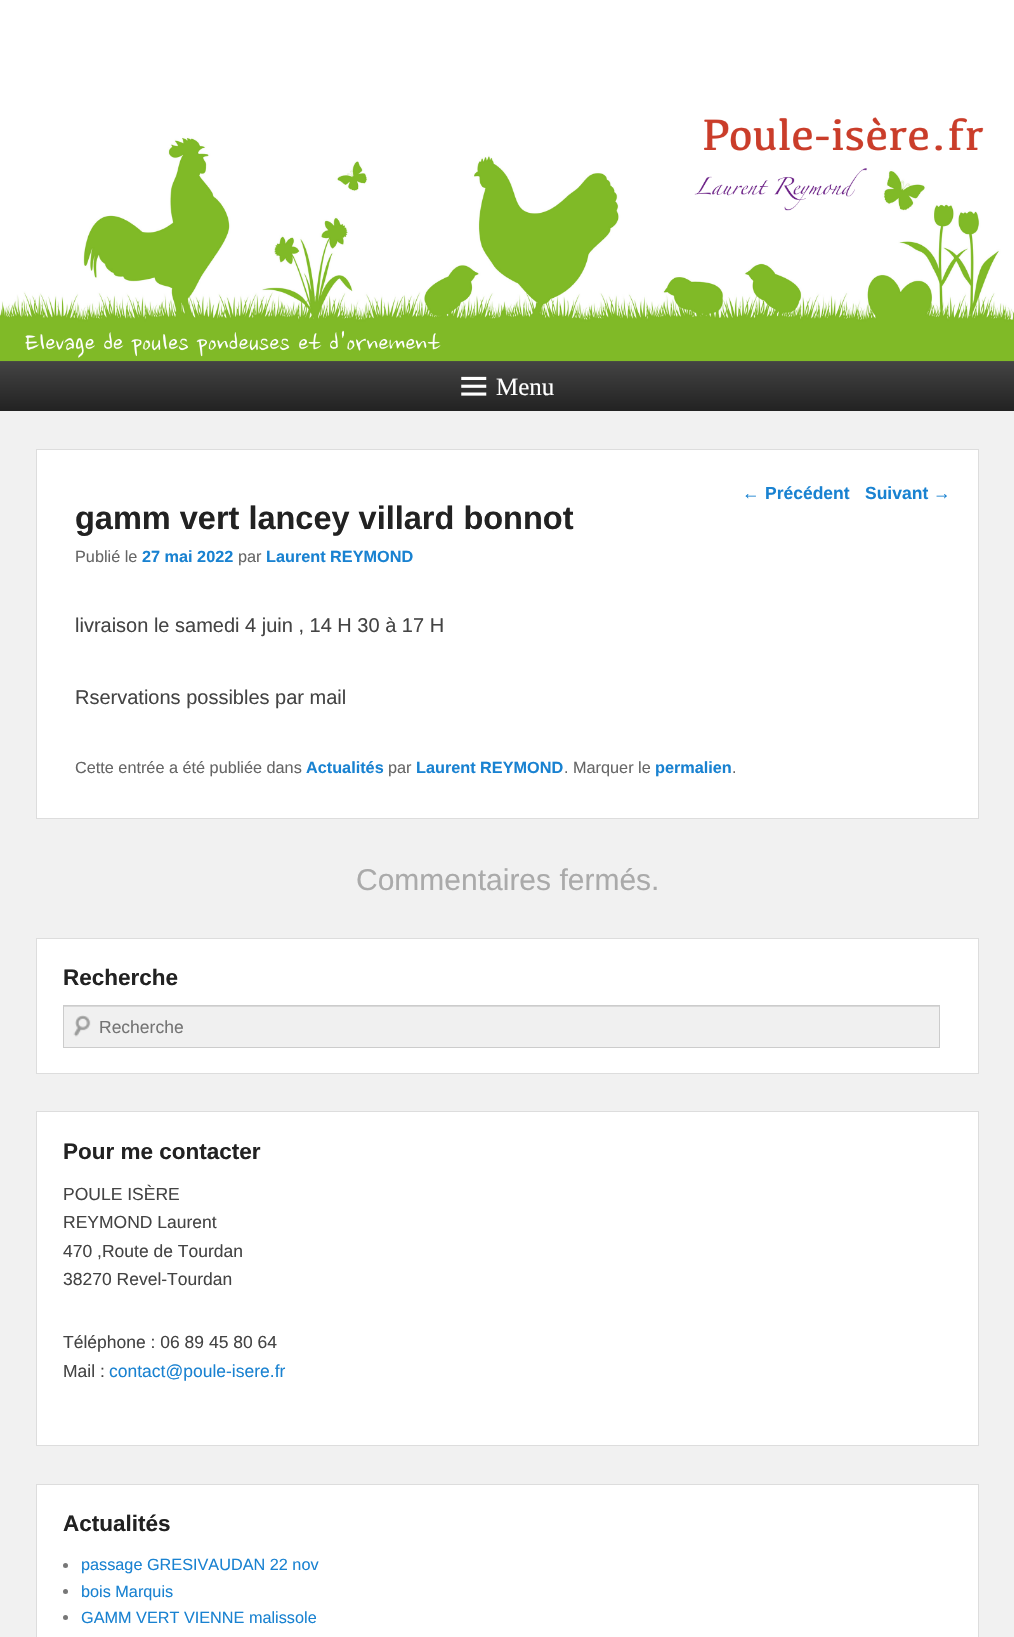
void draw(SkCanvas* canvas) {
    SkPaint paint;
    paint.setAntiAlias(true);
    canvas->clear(0xFFF1F1F1);
    paint.setColor(0xFFFFFFFF);
    canvas->drawRect(SkRect::MakeXYWH(0, 0, 1014, 117), paint);
    {
        const SkColor colors[] = {0xFF444444, 0xFF222222};
        const float stops[] = {0, 1};
        const SkPoint ends[] = {{508, 361}, {508, 411}};
        paint.setShader(SkGradientShader::MakeLinear(ends, colors, stops, 2, SkTileMode::kClamp));
        paint.setAlpha(255);
    }
    canvas->drawRect(SkRect::MakeXYWH(0, 361, 1014, 50), paint);
    canvas->drawImageRect(SkImages::DeferredFromEncodedData(SkData::MakeFromFileName("img1.png")), SkRect::MakeXYWH(0, 117, 1014, 245), SkSamplingOptions());
    canvas->drawImageRect(SkImages::DeferredFromEncodedData(SkData::MakeFromFileName("img2.png")), SkRect::MakeXYWH(461, 376, 26, 20), SkSamplingOptions());
    SkFont font1(fontMgr->matchFamilyStyle("Liberation Serif", SkFontStyle::Normal()), 25);
    font1.setSubpixel(true);
    paint.setShader(nullptr);
    paint.setColor(0xFFFFFFFF);
    canvas->drawString("Menu", 496, 395, font1, paint);
    canvas->drawRect(SkRect::MakeXYWH(36.5f, 449.5f, 942, 369), paint);
    paint.setStyle(SkPaint::kStroke_Style);
    paint.setStrokeWidth(1);
    paint.setColor(0xFFDDDDDD);
    canvas->drawRect(SkRect::MakeXYWH(36.5f, 449.5f, 942, 369), paint);
    SkFont font2(fontMgr->matchFamilyStyle("Liberation Sans", SkFontStyle::Normal()), 17.5f);
    font2.setSubpixel(true);
    paint.setStyle(SkPaint::kFill_Style);
    paint.setColor(0xFF1982D1);
    canvas->drawString("←", 742, 499, font2, paint);
    SkFont font3(fontMgr->matchFamilyStyle("Liberation Sans", SkFontStyle::Bold()), 17.5f);
    font3.setSubpixel(true);
    canvas->drawString("Précédent", 765, 499, font3, paint);
    canvas->drawString("Suivant", 865, 499, font3, paint);
    canvas->drawString("→", 933, 499, font2, paint);
    SkFont font4(fontMgr->matchFamilyStyle("Liberation Sans", SkFontStyle::Bold()), 32.5f);
    font4.setSubpixel(true);
    paint.setColor(0xFF222222);
    canvas->drawString("gamm vert lancey villard bonnot", 75, 529, font4, paint);
    SkFont font5(fontMgr->matchFamilyStyle("Liberation Sans", SkFontStyle::Normal()), 16.25f);
    font5.setSubpixel(true);
    paint.setColor(0xFF666666);
    canvas->drawString("Publié le", 75, 562, font5, paint);
    SkFont font6(fontMgr->matchFamilyStyle("Liberation Sans", SkFontStyle::Bold()), 16.25f);
    font6.setSubpixel(true);
    paint.setColor(0xFF1982D1);
    canvas->drawString("27 mai 2022", 142, 562, font6, paint);
    paint.setColor(0xFF666666);
    canvas->drawString("par", 238, 562, font5, paint);
    paint.setColor(0xFF1982D1);
    canvas->drawString("Laurent REYMOND", 266, 562, font6, paint);
    SkFont font7(fontMgr->matchFamilyStyle("Liberation Sans", SkFontStyle::Normal()), 20);
    font7.setSubpixel(true);
    paint.setColor(0xFF444444);
    canvas->drawString("livraison le samedi 4 juin , 14 H 30 à 17 H", 75, 632, font7, paint);
    canvas->drawString("Rservations possibles par mail", 75, 704, font7, paint);
    paint.setColor(0xFF666666);
    canvas->drawString("Cette entrée a été publiée dans", 75, 773, font5, paint);
    paint.setColor(0xFF1982D1);
    canvas->drawString("Actualités", 306, 773, font6, paint);
    paint.setColor(0xFF666666);
    canvas->drawString("par", 388, 773, font5, paint);
    paint.setColor(0xFF1982D1);
    canvas->drawString("Laurent REYMOND", 416, 773, font6, paint);
    paint.setColor(0xFF666666);
    canvas->drawString(". Marquer le", 564, 773, font5, paint);
    paint.setColor(0xFF1982D1);
    canvas->drawString("permalien", 655, 773, font6, paint);
    paint.setColor(0xFF666666);
    canvas->drawString(".", 732, 773, font5, paint);
    SkFont font8(fontMgr->matchFamilyStyle("Liberation Sans", SkFontStyle::Normal()), 30);
    font8.setSubpixel(true);
    paint.setColor(0xFFAAAAAA);
    canvas->drawString("Commentaires fermés.", 356, 890, font8, paint);
    paint.setColor(0xFFFFFFFF);
    canvas->drawRect(SkRect::MakeXYWH(36.5f, 938.5f, 942, 135), paint);
    paint.setStyle(SkPaint::kStroke_Style);
    paint.setColor(0xFFDDDDDD);
    canvas->drawRect(SkRect::MakeXYWH(36.5f, 938.5f, 942, 135), paint);
    SkFont font9(fontMgr->matchFamilyStyle("Liberation Sans", SkFontStyle::Bold()), 22.5f);
    font9.setSubpixel(true);
    paint.setStyle(SkPaint::kFill_Style);
    paint.setColor(0xFF222222);
    canvas->drawString("Recherche", 63, 985, font9, paint);
    paint.setColor(0xFFF0F0F0);
    canvas->drawRect(SkRect::MakeXYWH(64, 1007, 875, 40), paint);
    canvas->drawImageRect(SkImages::DeferredFromEncodedData(SkData::MakeFromFileName("img3.png")), SkRect::MakeXYWH(73, 1015, 18, 22), SkSamplingOptions());
    paint.setColor(0xFFD8D8D8);
    canvas->drawRect(SkRect::MakeXYWH(64, 1006, 875, 1), paint);
    paint.setStyle(SkPaint::kStroke_Style);
    paint.setColor(0xFFCCCCCC);
    canvas->drawRect(SkRect::MakeXYWH(63.5f, 1005.5f, 876, 42), paint);
    paint.setStyle(SkPaint::kFill_Style);
    paint.setColor(0xFF757575);
    canvas->drawString("Recherche", 99, 1033, font2, paint);
    paint.setColor(0xFFFFFFFF);
    canvas->drawRect(SkRect::MakeXYWH(36.5f, 1111.5f, 942, 334), paint);
    paint.setStyle(SkPaint::kStroke_Style);
    paint.setColor(0xFFDDDDDD);
    canvas->drawRect(SkRect::MakeXYWH(36.5f, 1111.5f, 942, 334), paint);
    paint.setStyle(SkPaint::kFill_Style);
    paint.setColor(0xFF222222);
    canvas->drawString("Pour me contacter", 63, 1159, font9, paint);
    paint.setColor(0xFF444444);
    canvas->drawString("POULE ISÈRE", 63, 1200, font2, paint);
    canvas->drawString("REYMOND Laurent", 63, 1228, font2, paint);
    canvas->drawString("470 ,Route de Tourdan", 63, 1257, font2, paint);
    canvas->drawString("38270 Revel-Tourdan", 63, 1285, font2, paint);
    canvas->drawString("Téléphone : 06 89 45 80 64", 63, 1348, font2, paint);
    canvas->drawString("Mail :", 63, 1377, font2, paint);
    paint.setColor(0xFF1982D1);
    canvas->drawString("contact@poule-isere.fr", 109, 1377, font2, paint);
    paint.setColor(0xFFFFFFFF);
    canvas->drawRect(SkRect::MakeXYWH(36.5f, 1484.5f, 942, 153), paint);
    paint.setStyle(SkPaint::kStroke_Style);
    paint.setColor(0xFFDDDDDD);
    canvas->drawRect(SkRect::MakeXYWH(36.5f, 1484.5f, 942, 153), paint);
    paint.setStyle(SkPaint::kFill_Style);
    paint.setColor(0xFF222222);
    canvas->drawString("Actualités", 63, 1531, font9, paint);
    paint.setColor(0xFF777777);
    canvas->drawCircle(65.5f, 1565.5f, 2.5f, paint);
    paint.setColor(0xFF1982D1);
    canvas->drawString("passage GRESIVAUDAN 22 nov", 81, 1570, font5, paint);
    paint.setColor(0xFF777777);
    canvas->drawCircle(65.5f, 1591.5f, 2.5f, paint);
    paint.setColor(0xFF1982D1);
    canvas->drawString("bois Marquis", 81, 1597, font5, paint);
    paint.setColor(0xFF777777);
    canvas->drawCircle(65.5f, 1617.5f, 2.5f, paint);
    paint.setColor(0xFF1982D1);
    canvas->drawString("GAMM VERT VIENNE malissole", 81, 1623, font5, paint);
}
